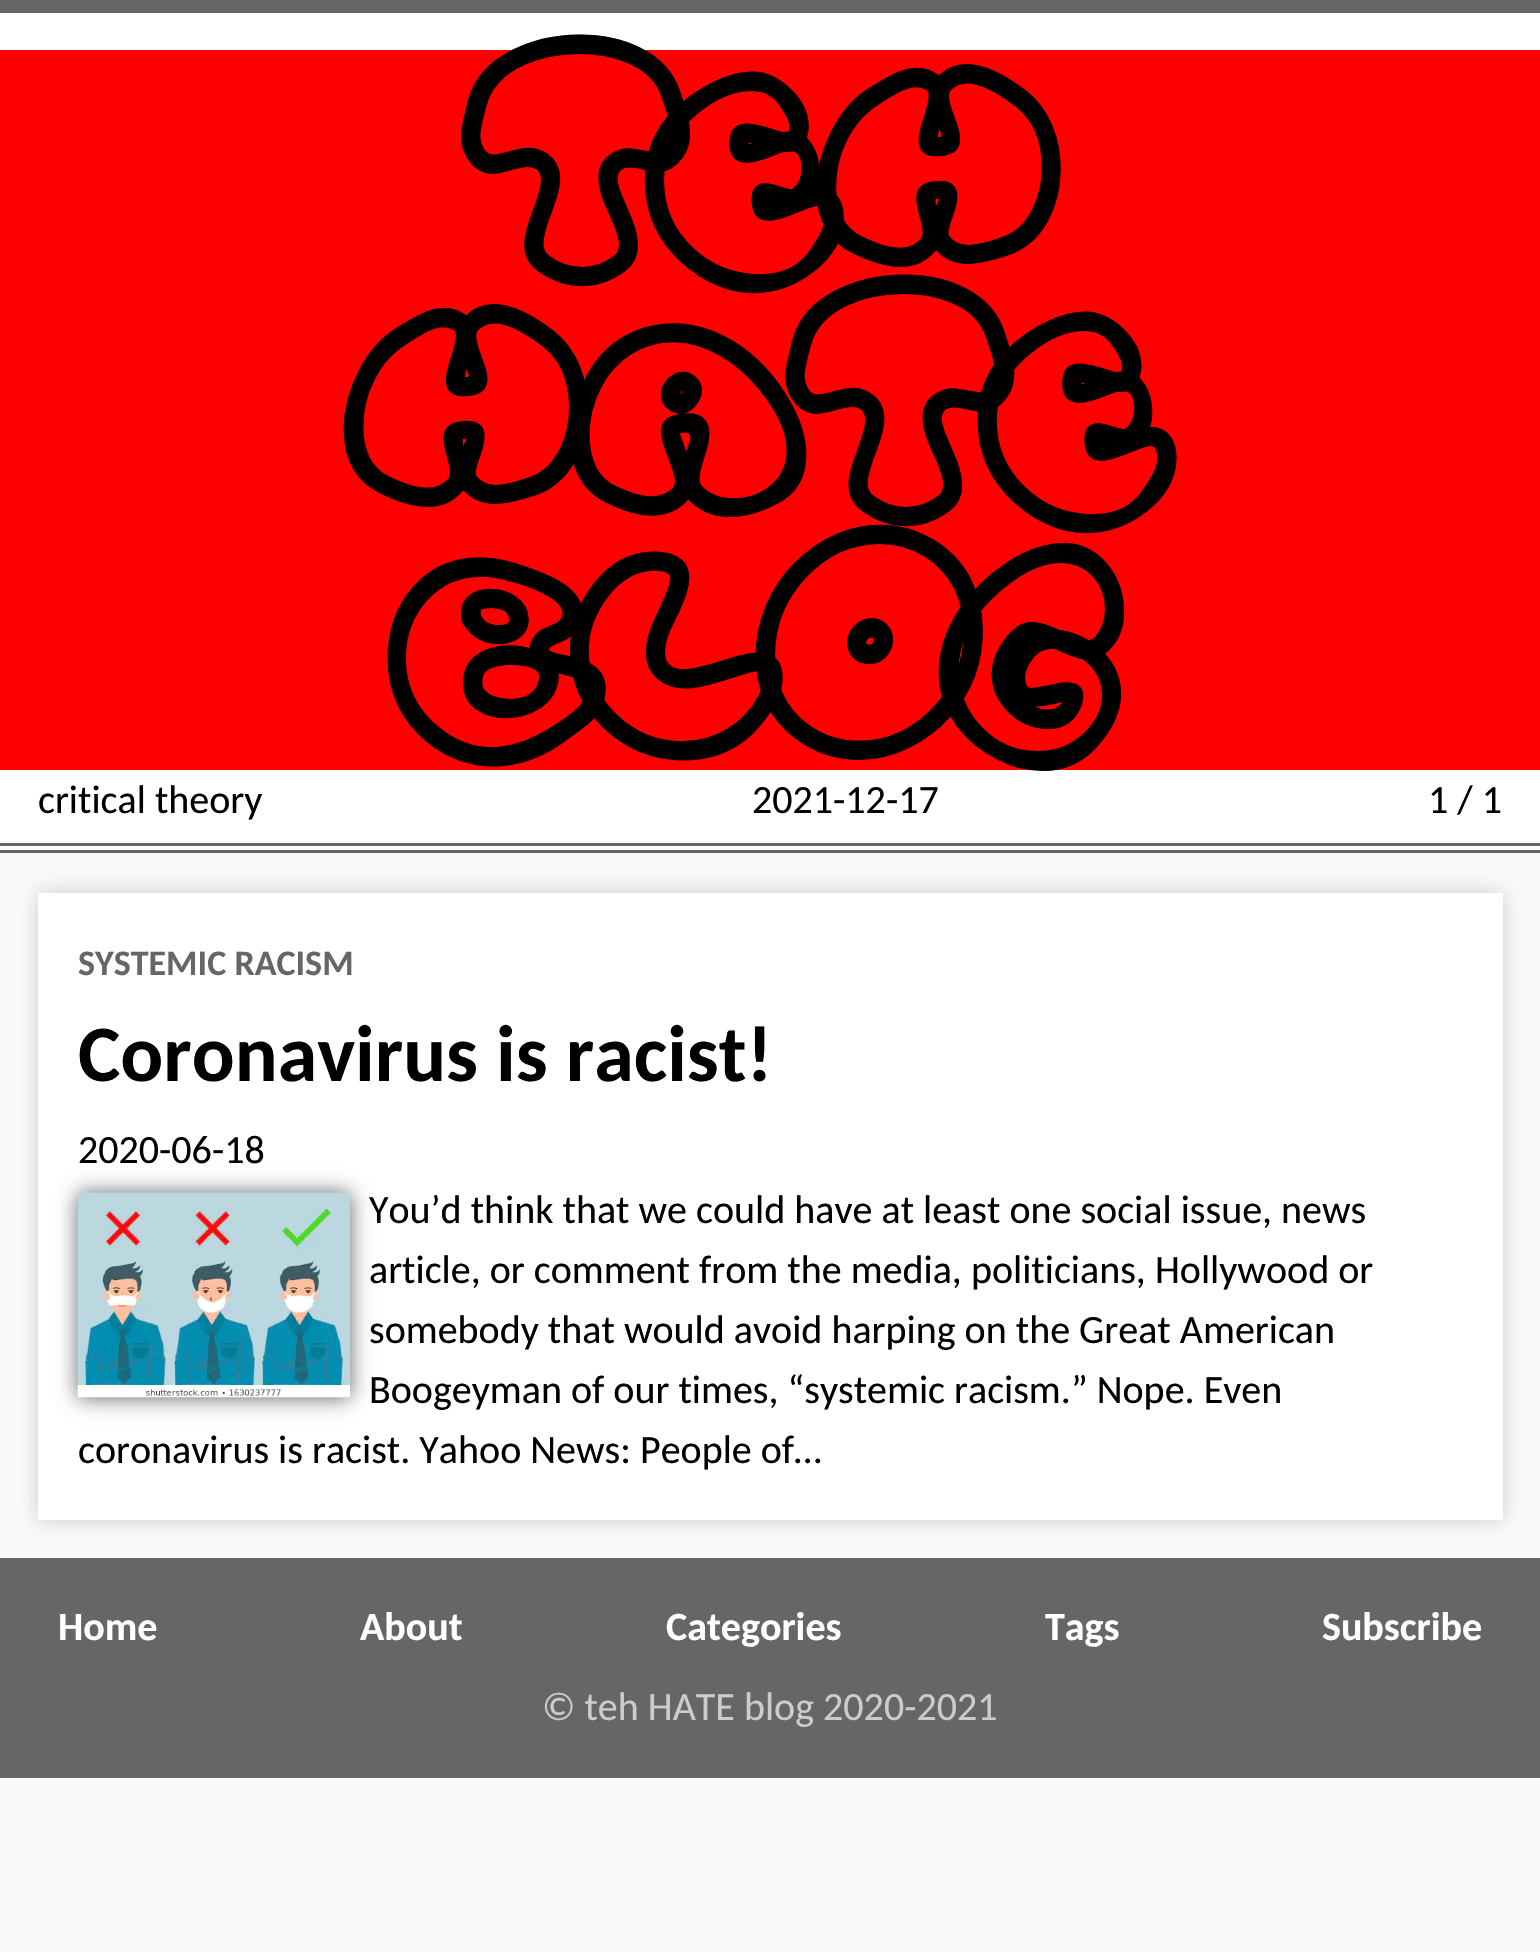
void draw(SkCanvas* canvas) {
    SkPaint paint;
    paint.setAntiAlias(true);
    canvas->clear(0xFFFAFAFA);
    paint.setColor(0xFFFFFFFF);
    canvas->drawRect(SkRect::MakeXYWH(0, 13, 1540, 837), paint);
    paint.setColor(0xFF666666);
    canvas->drawRect(SkRect::MakeXYWH(0, 0, 1540, 13), paint);
    canvas->drawRect(SkRect::MakeXYWH(0, 843, 1540, 3), paint);
    canvas->drawRect(SkRect::MakeXYWH(0, 850, 1540, 3), paint);
    paint.setColor(0xFFFF0000);
    canvas->drawRect(SkRect::MakeXYWH(0, 50, 1540, 720), paint);
    SkFont font1(fontMgr->matchFamilyStyle("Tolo", SkFontStyle::Normal()), 240);
    font1.setSubpixel(true);
    paint.setColor(0xFF000000);
    canvas->drawString("teh", 487, 255, font1, paint);
    canvas->drawString("HATE", 360, 495, font1, paint);
    canvas->drawString("blog", 426, 735, font1, paint);
    SkFont font2(fontMgr->matchFamilyStyle("Carlito", SkFontStyle::Normal()), 40);
    font2.setSubpixel(true);
    canvas->drawString("critical theory", 38, 813, font2, paint);
    canvas->drawString("2021-12-17", 752, 813, font2, paint);
    canvas->drawString("1 / 1", 1428, 813, font2, paint);
    paint.setColor(0xFFCCCCCC);
    paint.setMaskFilter(SkMaskFilter::MakeBlur(kNormal_SkBlurStyle, 10));
    canvas->drawRect(SkRect::MakeXYWH(38, 893, 1465, 627), paint);
    paint.setMaskFilter(nullptr);
    paint.setColor(0xFFFFFFFF);
    canvas->drawRect(SkRect::MakeXYWH(38, 893, 1465, 627), paint);
    SkFont font3(fontMgr->matchFamilyStyle("Carlito", SkFontStyle::Bold()), 36);
    font3.setSubpixel(true);
    paint.setColor(0xFF666666);
    canvas->drawString("SYSTEMIC RACISM", 78, 975, font3, paint);
    SkFont font4(fontMgr->matchFamilyStyle("Carlito", SkFontStyle::Bold()), 80);
    font4.setSubpixel(true);
    paint.setColor(0xFF000000);
    canvas->drawString("Coronavirus is racist!", 78, 1081, font4, paint);
    canvas->drawString("2020-06-18", 78, 1163, font2, paint);
    paint.setColor(0xFF666666);
    paint.setMaskFilter(SkMaskFilter::MakeBlur(kNormal_SkBlurStyle, 10));
    canvas->drawRect(SkRect::MakeXYWH(78, 1193, 272, 205), paint);
    paint.setMaskFilter(nullptr);
    canvas->drawImageRect(SkImages::DeferredFromEncodedData(SkData::MakeFromFileName("img1.png")), SkRect::MakeXYWH(77, 1192, 273, 206), SkSamplingOptions());
    paint.setColor(0xFF000000);
    canvas->drawString("You’d think that we could have at least one social issue, news", 369, 1223, font2, paint);
    canvas->drawString("article, or comment from the media, politicians, Hollywood or", 369, 1283, font2, paint);
    canvas->drawString("somebody that would avoid harping on the Great American", 369, 1343, font2, paint);
    canvas->drawString("Boogeyman of our times, “systemic racism.” Nope. Even", 369, 1403, font2, paint);
    canvas->drawString("coronavirus is racist. Yahoo News: People of…", 78, 1463, font2, paint);
    paint.setColor(0xFF666666);
    canvas->drawRect(SkRect::MakeXYWH(0, 1558, 1540, 220), paint);
    SkFont font5(fontMgr->matchFamilyStyle("Carlito", SkFontStyle::Bold()), 40);
    font5.setSubpixel(true);
    paint.setColor(0xFFFFFFFF);
    canvas->drawString("Home", 58, 1640, font5, paint);
    canvas->drawString("About", 360, 1640, font5, paint);
    canvas->drawString("Categories", 666, 1640, font5, paint);
    canvas->drawString("Tags", 1045, 1640, font5, paint);
    canvas->drawString("Subscribe", 1322, 1640, font5, paint);
    paint.setColor(0xFFCCCCCC);
    canvas->drawString("© teh HATE blog 2020-2021", 542, 1720, font2, paint);
}
